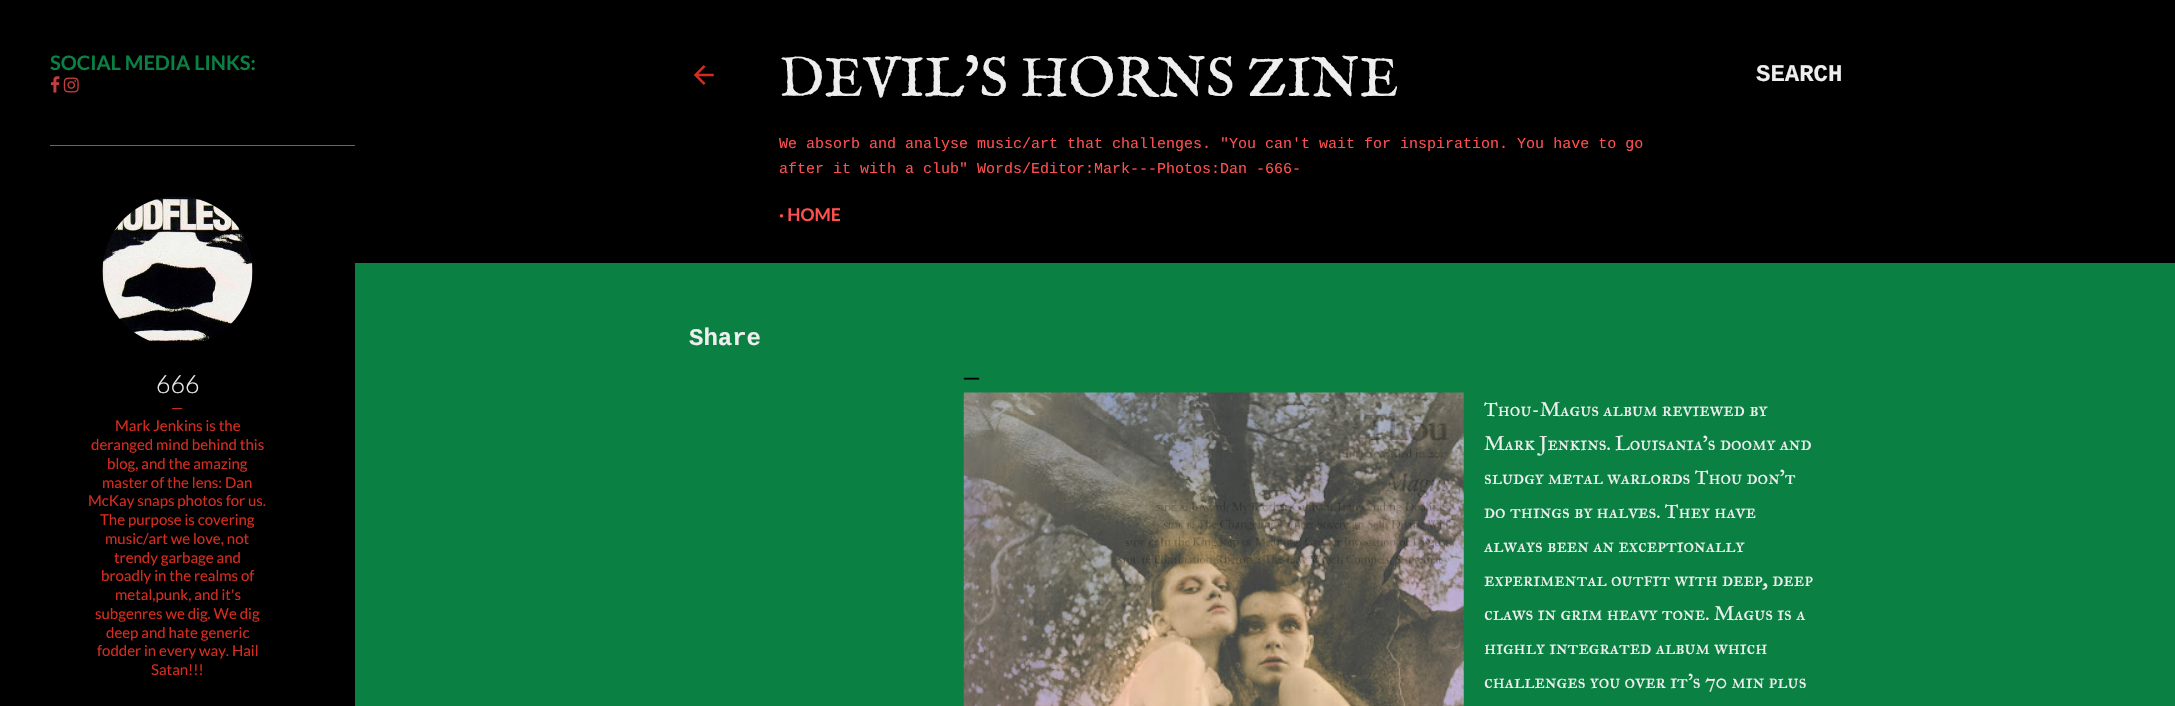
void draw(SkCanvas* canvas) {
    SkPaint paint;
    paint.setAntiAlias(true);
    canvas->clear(0xFF0B8043);
    paint.setColor(0xFF000000);
    canvas->drawRect(SkRect::MakeXYWH(0, 0, 355, 706), paint);
    SkFont font1(fontMgr->matchFamilyStyle("Lato", SkFontStyle::Bold()), 20);
    font1.setSubpixel(true);
    paint.setColor(0xFF0B8043);
    canvas->drawString("SOCIAL MEDIA LINKS:", 50, 70, font1, paint);
    canvas->drawImageRect(SkImages::DeferredFromEncodedData(SkData::MakeFromFileName("img1.png")), SkRect::MakeXYWH(50, 76, 10, 17), SkSamplingOptions());
    canvas->drawImageRect(SkImages::DeferredFromEncodedData(SkData::MakeFromFileName("img2.png")), SkRect::MakeXYWH(63, 77, 16, 16), SkSamplingOptions());
    paint.setColor(0xFFC63D3D);
    canvas->drawRect(SkRect::MakeXYWH(50, 145, 305, 1), paint);
    canvas->drawImageRect(SkImages::DeferredFromEncodedData(SkData::MakeFromFileName("img3.png")), SkRect::MakeXYWH(102, 196, 151, 149), SkSamplingOptions());
    SkFont font2(fontMgr->matchFamilyStyle("Lato", SkFontStyle(300, SkFontStyle::kNormal_Width, SkFontStyle::kUpright_Slant)), 25);
    font2.setSubpixel(true);
    paint.setColor(0xFFEEEEEE);
    canvas->drawString("666", 156, 393, font2, paint);
    SkFont font3(fontMgr->matchFamilyStyle("Lato", SkFontStyle::Normal()), 15);
    font3.setSubpixel(true);
    paint.setColor(0xFFD52C1F);
    canvas->drawString("—", 171, 413, font3, paint);
    canvas->drawString("Mark Jenkins is the", 115, 431, font3, paint);
    canvas->drawString("deranged mind behind this", 91, 450, font3, paint);
    canvas->drawString("blog, and the amazing", 107, 469, font3, paint);
    canvas->drawString("master of the lens: Dan", 102, 488, font3, paint);
    canvas->drawString("McKay snaps photos for us.", 88, 506, font3, paint);
    canvas->drawString("The purpose is covering", 100, 525, font3, paint);
    canvas->drawString("music/art we love, not", 105, 544, font3, paint);
    canvas->drawString("trendy garbage and", 114, 563, font3, paint);
    canvas->drawString("broadly in the realms of", 101, 581, font3, paint);
    canvas->drawString("metal,punk, and it's", 115, 600, font3, paint);
    canvas->drawString("subgenres we dig. We dig", 95, 619, font3, paint);
    canvas->drawString("deep and hate generic", 106, 638, font3, paint);
    canvas->drawString("fodder in every way. Hail", 97, 656, font3, paint);
    canvas->drawString("Satan!!!", 151, 675, font3, paint);
    paint.setColor(0xFF000000);
    canvas->drawRect(SkRect::MakeXYWH(355, 0, 1820, 263), paint);
    canvas->drawImageRect(SkImages::DeferredFromEncodedData(SkData::MakeFromFileName("img4.png")), SkRect::MakeXYWH(694, 65, 20, 20), SkSamplingOptions());
    SkFont font4(fontMgr->matchFamilyStyle("IM FELL English SC", SkFontStyle::Normal()), 56.25f);
    font4.setSubpixel(true);
    paint.setColor(0xFFEEEEEE);
    canvas->drawString("DEVIL'S HORNS ZINE", 779, 96, font4, paint);
    SkFont font5(fontMgr->matchFamilyStyle("Liberation Mono", SkFontStyle::Normal()), 15);
    font5.setSubpixel(true);
    paint.setColor(0xFFFF4F4F);
    canvas->drawString("We absorb and analyse music/art that challenges. \"You can't wait for inspiration. You have to go", 779, 148, font5, paint);
    canvas->drawString("after it with a club\" Words/Editor:Mark---Photos:Dan -666-", 779, 173, font5, paint);
    SkFont font6(fontMgr->matchFamilyStyle("Lato", SkFontStyle::Bold()), 17.5f);
    font6.setSubpixel(true);
    canvas->drawString("· HOME", 779, 221, font6, paint);
    SkFont font7(fontMgr->matchFamilyStyle("Liberation Mono", SkFontStyle::Bold()), 24);
    font7.setSubpixel(true);
    paint.setColor(0xFFEEEEEE);
    canvas->drawString("SEARCH", 1756, 81, font7, paint);
    canvas->drawString("Share", 689, 345, font7, paint);
    SkFont font8(fontMgr->matchFamilyStyle("Liberation Mono", SkFontStyle::Normal()), 25);
    font8.setSubpixel(true);
    paint.setColor(0xFF000000);
    canvas->drawString("—", 964, 385, font8, paint);
    canvas->drawImageRect(SkImages::DeferredFromEncodedData(SkData::MakeFromFileName("img5.png")), SkRect::MakeXYWH(963, 392, 501, 314), SkSamplingOptions());
    SkFont font9(fontMgr->matchFamilyStyle("IM FELL Great Primer SC", SkFontStyle::Normal()), 20);
    font9.setSubpixel(true);
    paint.setColor(0xFFEEEEEE);
    canvas->drawString("Thou-Magus album reviewed by", 1484, 416, font9, paint);
    canvas->drawString("Mark Jenkins. Louisania's doomy and", 1484, 450, font9, paint);
    canvas->drawString("sludgy metal warlords Thou don't", 1484, 484, font9, paint);
    canvas->drawString("do things by halves. They have", 1484, 518, font9, paint);
    canvas->drawString("always been an exceptionally", 1484, 552, font9, paint);
    canvas->drawString("experimental outfit with deep, deep", 1484, 586, font9, paint);
    canvas->drawString("claws in grim heavy tone. Magus is a", 1484, 620, font9, paint);
    canvas->drawString("highly integrated album which", 1484, 654, font9, paint);
    canvas->drawString("challenges you over it's 70 min plus", 1484, 688, font9, paint);
}
